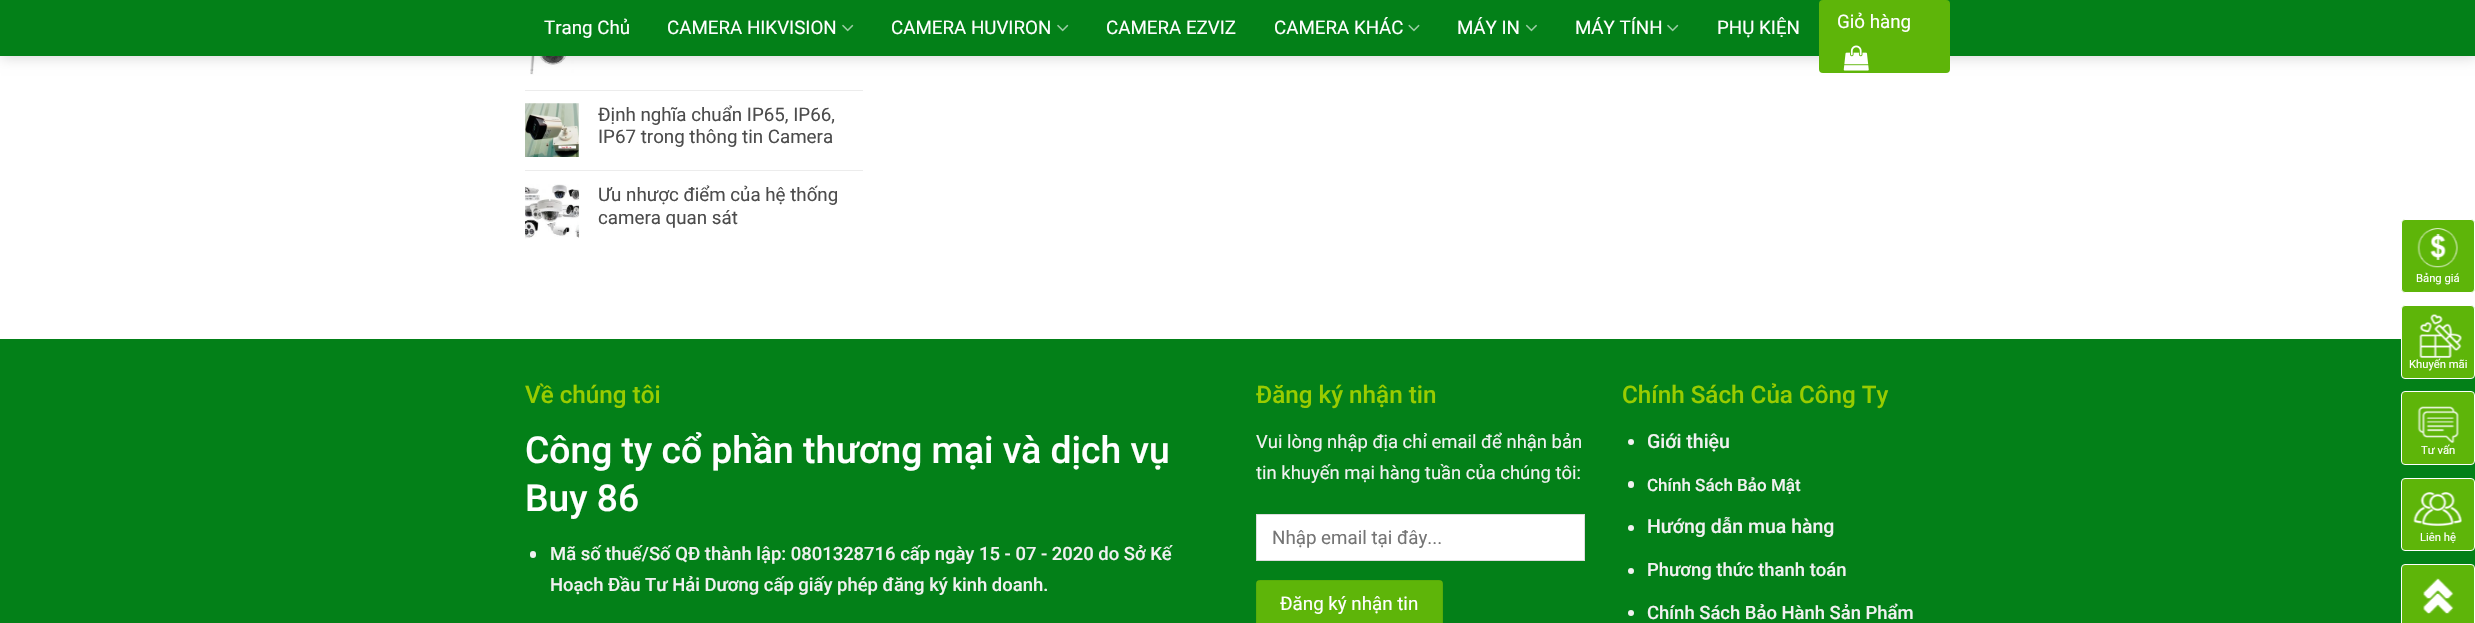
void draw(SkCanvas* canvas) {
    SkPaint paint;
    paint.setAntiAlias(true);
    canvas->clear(0xFFFFFFFF);
    canvas->drawImageRect(SkImages::DeferredFromEncodedData(SkData::MakeFromFileName("img5.png")), SkRect::MakeXYWH(530, 56, 46, 19), SkSamplingOptions());
    paint.setColor(0x26000000);
    paint.setMaskFilter(SkMaskFilter::MakeBlur(kNormal_SkBlurStyle, 6));
    canvas->drawRect(SkRect::MakeXYWH(1, 1, 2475, 57), paint);
    paint.setMaskFilter(nullptr);
    paint.setColor(0xFF038018);
    canvas->drawRect(SkRect::MakeXYWH(0, 0, 2475, 56), paint);
    SkFont font1(fontMgr->matchFamilyStyle("Roboto", SkFontStyle::Normal()), 18.75f);
    font1.setSubpixel(true);
    paint.setColor(0xFFFFFFFF);
    canvas->drawString("Trang Chủ", 544, 34, font1, paint);
    canvas->drawString("CAMERA HIKVISION", 667, 34, font1, paint);
    canvas->drawImageRect(SkImages::DeferredFromEncodedData(SkData::MakeFromFileName("img1.png")), SkRect::MakeXYWH(842, 24, 12, 8), SkSamplingOptions());
    canvas->drawString("CAMERA HUVIRON", 891, 34, font1, paint);
    canvas->drawImageRect(SkImages::DeferredFromEncodedData(SkData::MakeFromFileName("img1.png")), SkRect::MakeXYWH(1057, 24, 12, 8), SkSamplingOptions());
    canvas->drawString("CAMERA EZVIZ", 1106, 34, font1, paint);
    canvas->drawString("CAMERA KHÁC", 1274, 34, font1, paint);
    canvas->drawImageRect(SkImages::DeferredFromEncodedData(SkData::MakeFromFileName("img2.png")), SkRect::MakeXYWH(1408, 24, 12, 8), SkSamplingOptions());
    canvas->drawString("MÁY IN", 1457, 34, font1, paint);
    canvas->drawImageRect(SkImages::DeferredFromEncodedData(SkData::MakeFromFileName("img3.png")), SkRect::MakeXYWH(1525, 24, 12, 8), SkSamplingOptions());
    canvas->drawString("MÁY TÍNH", 1575, 34, font1, paint);
    canvas->drawImageRect(SkImages::DeferredFromEncodedData(SkData::MakeFromFileName("img1.png")), SkRect::MakeXYWH(1667, 24, 12, 8), SkSamplingOptions());
    canvas->drawString("PHỤ KIỆN", 1717, 34, font1, paint);
    paint.setColor(0xFF5EB509);
    canvas->drawRoundRect(SkRect::MakeXYWH(1819, 0, 131, 73), 4, 4, paint);
    paint.setColor(0xFFFFFFFF);
    canvas->drawString("Giỏ hàng", 1837, 28, font1, paint);
    canvas->drawImageRect(SkImages::DeferredFromEncodedData(SkData::MakeFromFileName("img4.png")), SkRect::MakeXYWH(1843, 45, 26, 26), SkSamplingOptions());
    paint.setColor(0xFFECECEC);
    canvas->drawRect(SkRect::MakeXYWH(525, 90, 338, 1), paint);
    canvas->drawImageRect(SkImages::DeferredFromEncodedData(SkData::MakeFromFileName("img6.png")), SkRect::MakeXYWH(525, 103, 54, 54), SkSamplingOptions());
    paint.setColor(0xFF4C4C4C);
    canvas->drawString("Định nghĩa chuẩn IP65, IP66,", 598, 121, font1, paint);
    canvas->drawString("IP67 trong thông tin Camera", 598, 143, font1, paint);
    paint.setColor(0xFFECECEC);
    canvas->drawRect(SkRect::MakeXYWH(525, 170, 338, 1), paint);
    canvas->drawImageRect(SkImages::DeferredFromEncodedData(SkData::MakeFromFileName("img7.png")), SkRect::MakeXYWH(525, 184, 55, 55), SkSamplingOptions());
    paint.setColor(0xFF4C4C4C);
    canvas->drawString("Ưu nhược điểm của hệ thống", 598, 201, font1, paint);
    canvas->drawString("camera quan sát", 598, 224, font1, paint);
    paint.setColor(0xFF038018);
    canvas->drawRect(SkRect::MakeXYWH(0, 339, 2475, 284), paint);
    SkFont font2(fontMgr->matchFamilyStyle("Roboto", SkFontStyle(500, SkFontStyle::kNormal_Width, SkFontStyle::kUpright_Slant)), 24.25f);
    font2.setSubpixel(true);
    paint.setColor(0xFF99CC00);
    canvas->drawString("Về chúng tôi", 525, 403, font2, paint);
    SkFont font3(fontMgr->matchFamilyStyle("Roboto", SkFontStyle(500, SkFontStyle::kNormal_Width, SkFontStyle::kUpright_Slant)), 37.25f);
    font3.setSubpixel(true);
    paint.setColor(0xFFFFFFFF);
    canvas->drawString("Công ty cổ phần thương mại và dịch vụ", 525, 463, font3, paint);
    canvas->drawString("Buy 86", 525, 511, font3, paint);
    paint.setColor(0xFFF1F1F1);
    canvas->drawRoundRect(SkRect::MakeXYWH(530, 551, 6, 7), 3, 3, paint);
    SkFont font4(fontMgr->matchFamilyStyle("Roboto", SkFontStyle(500, SkFontStyle::kNormal_Width, SkFontStyle::kUpright_Slant)), 18.45f);
    font4.setSubpixel(true);
    canvas->drawString("Mã số thuế/Số QĐ thành lập: 0801328716 cấp ngày 15 - 07 - 2020 do Sở Kế", 550, 560, font4, paint);
    canvas->drawString("Hoạch Đầu Tư Hải Dương cấp giấy phép đăng ký kinh doanh.", 550, 591, font4, paint);
    paint.setColor(0xFF99CC00);
    canvas->drawString("Đăng ký nhận tin", 1256, 403, font2, paint);
    SkFont font5(fontMgr->matchFamilyStyle("Roboto", SkFontStyle::Normal()), 18.45f);
    font5.setSubpixel(true);
    paint.setColor(0xFFF1F1F1);
    canvas->drawString("Vui lòng nhập địa chỉ email để nhận bản", 1256, 448, font5, paint);
    canvas->drawString("tin khuyến mại hàng tuần của chúng tôi:", 1256, 479, font5, paint);
    paint.setColor(0xFFFFFFFF);
    canvas->drawRect(SkRect::MakeXYWH(1256.5f, 514.5f, 328, 46), paint);
    paint.setStyle(SkPaint::kStroke_Style);
    paint.setStrokeWidth(1);
    paint.setColor(0xFFDDDDDD);
    canvas->drawRect(SkRect::MakeXYWH(1256.5f, 514.5f, 328, 46), paint);
    paint.setStyle(SkPaint::kFill_Style);
    paint.setColor(0xFF757575);
    canvas->drawString("Nhập email tại đây...", 1272, 544, font1, paint);
    paint.setColor(0xFF5EB509);
    canvas->drawRoundRect(SkRect::MakeXYWH(1256, 580, 187, 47), 4, 4, paint);
    paint.setStyle(SkPaint::kStroke_Style);
    paint.setColor(0x0D000000);
    canvas->drawRect(SkRect::MakeXYWH(1256.5f, 580.5f, 186, 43), paint);
    paint.setStyle(SkPaint::kFill_Style);
    paint.setColor(0xFFFFFFFF);
    canvas->drawString("Đăng ký nhận tin", 1280, 610, font1, paint);
    paint.setColor(0xFF99CC00);
    canvas->drawString("Chính Sách Của Công Ty", 1622, 403, font2, paint);
    paint.setColor(0xFFF1F1F1);
    canvas->drawCircle(1631, 442, 3, paint);
    SkFont font6(fontMgr->matchFamilyStyle("Roboto", SkFontStyle(500, SkFontStyle::kNormal_Width, SkFontStyle::kUpright_Slant)), 19.5f);
    font6.setSubpixel(true);
    canvas->drawString("Giới thiệu", 1647, 448, font6, paint);
    canvas->drawRoundRect(SkRect::MakeXYWH(1628, 481, 6, 7), 3, 3, paint);
    SkFont font7(fontMgr->matchFamilyStyle("Roboto", SkFontStyle(500, SkFontStyle::kNormal_Width, SkFontStyle::kUpright_Slant)), 17);
    font7.setSubpixel(true);
    canvas->drawString("Chính Sách Bảo Mật", 1647, 491, font7, paint);
    canvas->drawCircle(1631, 528, 3, paint);
    canvas->drawString("Hướng dẫn mua hàng", 1647, 533, font6, paint);
    canvas->drawCircle(1631, 571, 3, paint);
    canvas->drawString("Phương thức thanh toán", 1647, 576, font4, paint);
    canvas->drawCircle(1631, 613, 3, paint);
    canvas->drawString("Chính Sách Bảo Hành Sản Phẩm", 1647, 619, font4, paint);
    paint.setColor(0xFF5EB509);
    canvas->drawRoundRect(SkRect::MakeXYWH(2401.5f, 219.5f, 73, 73), 3.5f, 3.5f, paint);
    paint.setStyle(SkPaint::kStroke_Style);
    paint.setColor(0xFFFFFFFF);
    canvas->drawRoundRect(SkRect::MakeXYWH(2401.5f, 219.5f, 73, 73), 3.5f, 3.5f, paint);
    canvas->drawImageRect(SkImages::DeferredFromEncodedData(SkData::MakeFromFileName("img8.png")), SkRect::MakeXYWH(2417, 228, 41, 40), SkSamplingOptions());
    SkFont font8(fontMgr->matchFamilyStyle("Roboto", SkFontStyle::Normal()), 11.25f);
    font8.setSubpixel(true);
    paint.setStyle(SkPaint::kFill_Style);
    canvas->drawString("Bảng giá", 2416, 282, font8, paint);
    paint.setColor(0xFF5EB509);
    canvas->drawRoundRect(SkRect::MakeXYWH(2401.5f, 305.5f, 73, 73), 3.5f, 3.5f, paint);
    paint.setStyle(SkPaint::kStroke_Style);
    paint.setColor(0xFFFFFFFF);
    canvas->drawRoundRect(SkRect::MakeXYWH(2401.5f, 305.5f, 73, 73), 3.5f, 3.5f, paint);
    canvas->drawImageRect(SkImages::DeferredFromEncodedData(SkData::MakeFromFileName("img9.png")), SkRect::MakeXYWH(2419, 314, 43, 44), SkSamplingOptions());
    paint.setStyle(SkPaint::kFill_Style);
    canvas->drawString("Khuyến mãi", 2409, 368, font8, paint);
    paint.setColor(0xFF5EB509);
    canvas->drawRoundRect(SkRect::MakeXYWH(2401.5f, 391.5f, 73, 73), 3.5f, 3.5f, paint);
    paint.setStyle(SkPaint::kStroke_Style);
    paint.setColor(0xFFFFFFFF);
    canvas->drawRoundRect(SkRect::MakeXYWH(2401.5f, 391.5f, 73, 73), 3.5f, 3.5f, paint);
    canvas->drawImageRect(SkImages::DeferredFromEncodedData(SkData::MakeFromFileName("img10.png")), SkRect::MakeXYWH(2417, 406, 42, 37), SkSamplingOptions());
    paint.setStyle(SkPaint::kFill_Style);
    canvas->drawString("Tư vấn", 2421, 454, font8, paint);
    paint.setColor(0xFF5EB509);
    canvas->drawRoundRect(SkRect::MakeXYWH(2401.5f, 478.5f, 73, 72), 3.5f, 3.5f, paint);
    paint.setStyle(SkPaint::kStroke_Style);
    paint.setColor(0xFFFFFFFF);
    canvas->drawRoundRect(SkRect::MakeXYWH(2401.5f, 478.5f, 73, 72), 3.5f, 3.5f, paint);
    canvas->drawImageRect(SkImages::DeferredFromEncodedData(SkData::MakeFromFileName("img11.png")), SkRect::MakeXYWH(2413, 492, 49, 34), SkSamplingOptions());
    paint.setStyle(SkPaint::kFill_Style);
    canvas->drawString("Liên hệ", 2420, 541, font8, paint);
    paint.setColor(0xFF5EB509);
    canvas->drawRoundRect(SkRect::MakeXYWH(2401.5f, 564.5f, 73, 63), 3.5f, 3.5f, paint);
    paint.setStyle(SkPaint::kStroke_Style);
    paint.setColor(0xFFFFFFFF);
    canvas->drawRoundRect(SkRect::MakeXYWH(2401.5f, 564.5f, 73, 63), 3.5f, 3.5f, paint);
    canvas->drawImageRect(SkImages::DeferredFromEncodedData(SkData::MakeFromFileName("img12.png")), SkRect::MakeXYWH(2423, 578, 31, 36), SkSamplingOptions());
}
